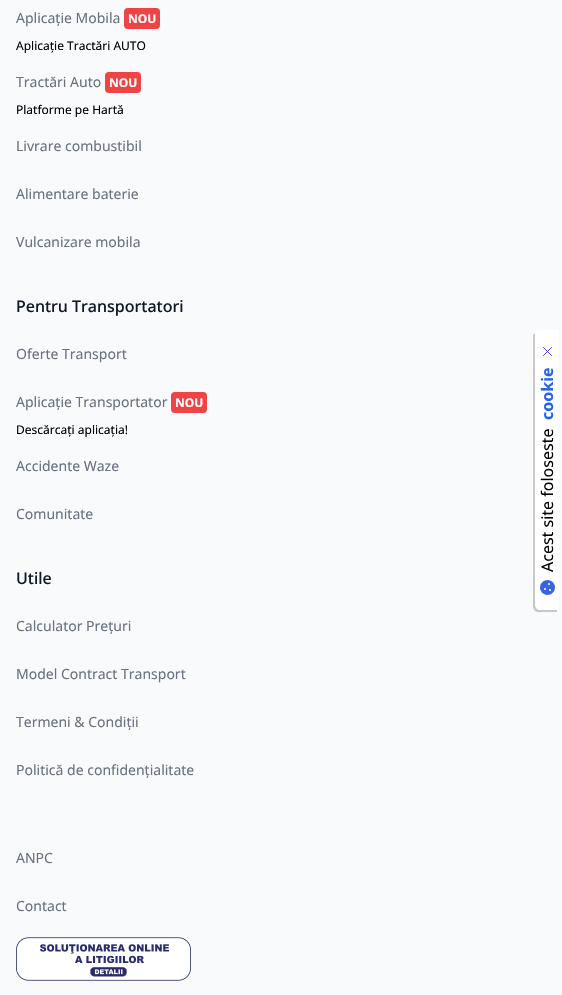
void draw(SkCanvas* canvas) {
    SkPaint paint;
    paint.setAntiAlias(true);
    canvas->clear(0xFFF9FAFB);
    SkFont font1(fontMgr->matchFamilyStyle("Noto Sans", SkFontStyle::Normal()), 14);
    font1.setSubpixel(true);
    paint.setColor(0xFF6B7280);
    canvas->drawString("Aplicație Mobila", 16, 23, font1, paint);
    paint.setColor(0xFFEF4444);
    canvas->drawRoundRect(SkRect::MakeXYWH(124, 8, 36, 21), 4, 4, paint);
    SkFont font2(fontMgr->matchFamilyStyle("Noto Sans", SkFontStyle::Bold()), 12);
    font2.setSubpixel(true);
    paint.setColor(0xFFFFFFFF);
    canvas->drawString("NOU", 128, 23, font2, paint);
    SkFont font3(fontMgr->matchFamilyStyle("Noto Sans", SkFontStyle::Normal()), 12);
    font3.setSubpixel(true);
    paint.setColor(0xFF000000);
    canvas->drawString("Aplicație Tractări AUTO", 16, 50, font3, paint);
    paint.setColor(0xFF6B7280);
    canvas->drawString("Tractări Auto", 16, 87, font1, paint);
    paint.setColor(0xFFEF4444);
    canvas->drawRoundRect(SkRect::MakeXYWH(105, 72, 36, 21), 4, 4, paint);
    paint.setColor(0xFFFFFFFF);
    canvas->drawString("NOU", 109, 87, font2, paint);
    paint.setColor(0xFF000000);
    canvas->drawString("Platforme pe Hartă", 16, 114, font3, paint);
    paint.setColor(0xFF6B7280);
    canvas->drawString("Livrare combustibil", 16, 151, font1, paint);
    canvas->drawString("Alimentare baterie", 16, 199, font1, paint);
    canvas->drawString("Vulcanizare mobila", 16, 247, font1, paint);
    SkFont font4(fontMgr->matchFamilyStyle("Noto Sans", SkFontStyle(500, SkFontStyle::kNormal_Width, SkFontStyle::kUpright_Slant)), 16);
    font4.setSubpixel(true);
    paint.setColor(0xFF111827);
    canvas->drawString("Pentru Transportatori", 16, 312, font4, paint);
    paint.setColor(0xFF6B7280);
    canvas->drawString("Oferte Transport", 16, 359, font1, paint);
    canvas->drawString("Aplicație Transportator", 16, 407, font1, paint);
    paint.setColor(0xFFEF4444);
    canvas->drawRoundRect(SkRect::MakeXYWH(171, 392, 36, 21), 4, 4, paint);
    paint.setColor(0xFFFFFFFF);
    canvas->drawString("NOU", 175, 407, font2, paint);
    paint.setColor(0xFF000000);
    canvas->drawString("Descărcați aplicația!", 16, 434, font3, paint);
    paint.setColor(0xFF6B7280);
    canvas->drawString("Accidente Waze", 16, 471, font1, paint);
    canvas->drawString("Comunitate", 16, 519, font1, paint);
    paint.setColor(0xFF111827);
    canvas->drawString("Utile", 16, 584, font4, paint);
    paint.setColor(0xFF6B7280);
    canvas->drawString("Calculator Prețuri", 16, 631, font1, paint);
    canvas->drawString("Model Contract Transport", 16, 679, font1, paint);
    canvas->drawString("Termeni & Condiții", 16, 727, font1, paint);
    canvas->drawString("Politică de confidențialitate", 16, 775, font1, paint);
    canvas->drawString("ANPC", 16, 863, font1, paint);
    canvas->drawString("Contact", 16, 911, font1, paint);
    canvas->drawImageRect(SkImages::DeferredFromEncodedData(SkData::MakeFromFileName("img1.png")), SkRect::MakeXYWH(16, 937, 175, 44), SkSamplingOptions());
    paint.setColor(0xFFC7C8C9);
    canvas->drawPath(SkPathBuilder().moveTo(533, 606).lineTo(533, 335).lineTo(535, 333).lineTo(535, 334).lineTo(535, 604).cubicTo(535, 607, 537, 610, 540, 610).lineTo(557, 610).lineTo(557, 612).lineTo(538, 612).cubicTo(535, 612, 533, 609, 533, 606).close().detach(), paint);
    paint.setColor(0xFFFFFFFF);
    canvas->drawPath(SkPathBuilder().moveTo(535, 604).lineTo(535, 334).cubicTo(535, 332, 537, 330, 540, 330).lineTo(559, 330).lineTo(559, 610).lineTo(540, 610).cubicTo(537, 610, 535, 607, 535, 604).close().detach(), paint);
    paint.setStyle(SkPaint::kStroke_Style);
    paint.setStrokeWidth(1);
    paint.setStrokeCap(SkPaint::kRound_Cap);
    paint.setStrokeJoin(SkPaint::kRound_Join);
    paint.setColor(0xFF5348E4);
    canvas->drawPath(SkPathBuilder().moveTo(551.5f, 355.5f).lineTo(543.5f, 347.5f).moveTo(543.5f, 355.5f).lineTo(551.5f, 347.5f).detach(), paint);
    SkFont font5(fontMgr->matchFamilyStyle("Noto Sans", SkFontStyle::Bold()), 16);
    font5.setSubpixel(true);
    paint.setStyle(SkPaint::kFill_Style);
    paint.setColor(0xFF2563EB);
    canvas->save();
    canvas->rotate(-90, 553, 420);
    canvas->drawString("cookie", 553, 420, font5, paint);
    canvas->restore();
    SkFont font6(fontMgr->matchFamilyStyle("Noto Sans", SkFontStyle::Normal()), 16);
    font6.setSubpixel(true);
    paint.setColor(0xFF000000);
    canvas->save();
    canvas->rotate(-90, 553, 572);
    canvas->drawString("Acest site foloseste", 553, 572, font6, paint);
    canvas->restore();
    canvas->drawImageRect(SkImages::DeferredFromEncodedData(SkData::MakeFromFileName("img2.png")), SkRect::MakeXYWH(540, 580, 15, 15), SkSamplingOptions());
}
